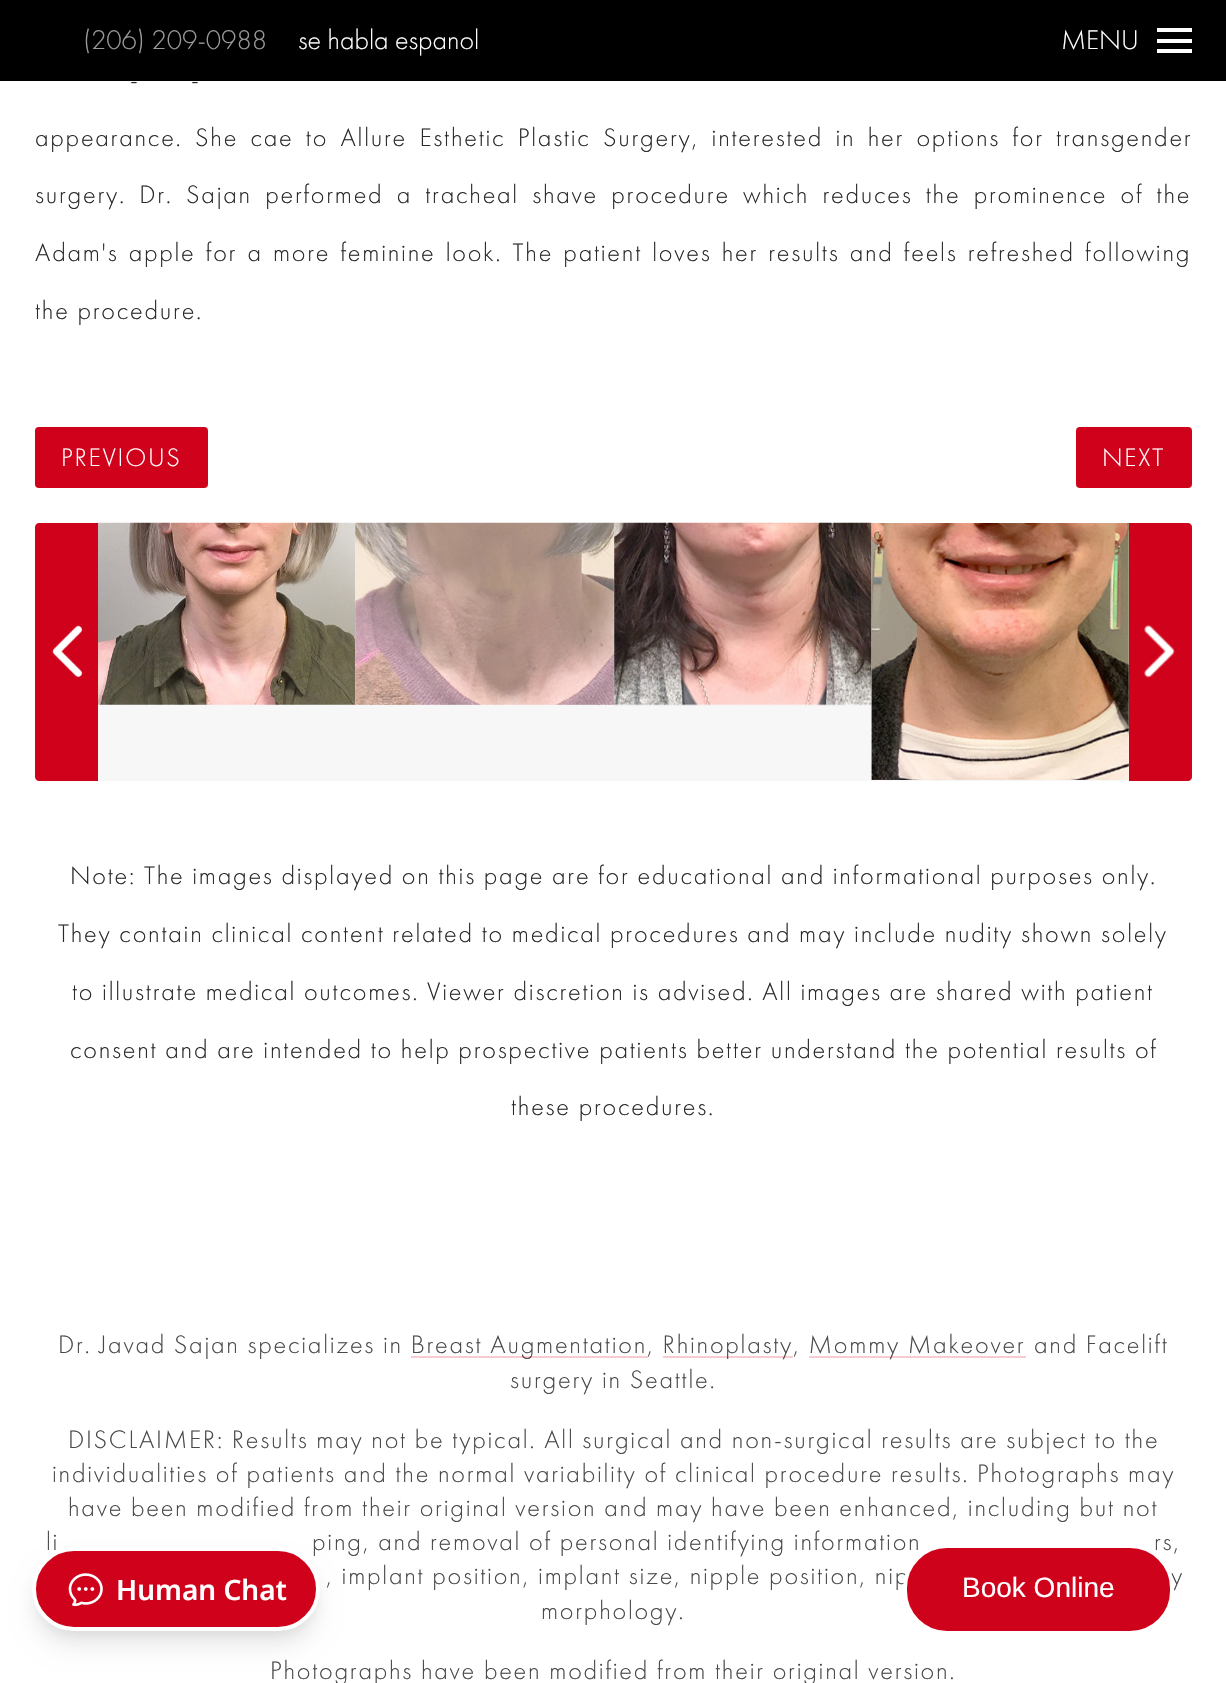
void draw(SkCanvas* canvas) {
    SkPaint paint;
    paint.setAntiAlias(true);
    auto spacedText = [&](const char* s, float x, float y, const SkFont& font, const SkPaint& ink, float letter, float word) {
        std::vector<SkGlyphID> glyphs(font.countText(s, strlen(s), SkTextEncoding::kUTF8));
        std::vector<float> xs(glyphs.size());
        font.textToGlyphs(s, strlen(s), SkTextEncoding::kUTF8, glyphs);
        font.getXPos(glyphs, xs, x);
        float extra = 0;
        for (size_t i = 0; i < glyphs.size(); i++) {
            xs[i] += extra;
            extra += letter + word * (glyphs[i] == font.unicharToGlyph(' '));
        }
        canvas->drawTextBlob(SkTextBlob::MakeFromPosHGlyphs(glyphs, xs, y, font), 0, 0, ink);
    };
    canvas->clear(0xFFFFFFFF);
    paint.setColor(0xFF000000);
    canvas->drawRect(SkRect::MakeXYWH(0, 0, 1226, 81), paint);
    SkFont font1(fontMgr->matchFamilyStyle("Futura PT", SkFontStyle(300, SkFontStyle::kNormal_Width, SkFontStyle::kUpright_Slant)), 28);
    font1.setSubpixel(true);
    paint.setColor(0xFF999999);
    canvas->drawString("(206) 209-0988", 83, 49, font1, paint);
    paint.setColor(0xFFFFFFFF);
    canvas->drawString("se habla espanol", 298, 49, font1, paint);
    canvas->drawString("MENU", 1061, 49, font1, paint);
    canvas->drawRect(SkRect::MakeXYWH(1157, 39, 35, 4), paint);
    canvas->drawRect(SkRect::MakeXYWH(1157, 28, 35, 4), paint);
    canvas->drawRect(SkRect::MakeXYWH(1157, 49, 35, 4), paint);
    SkFont font2(fontMgr->matchFamilyStyle("Futura PT", SkFontStyle(300, SkFontStyle::kNormal_Width, SkFontStyle::kUpright_Slant)), 26.25f);
    font2.setSubpixel(true);
    paint.setColor(0xFF2A2A2A);
    spacedText("-", 130, 88, font2, paint, 1.75f, 11);
    spacedText("-", 191, 88, font2, paint, 1.75f, 11);
    spacedText("appearance. She cae to Allure Esthetic Plastic Surgery, interested in her options for transgender", 35, 146, font2, paint, 1.75f, 4.5f);
    spacedText("surgery. Dr. Sajan performed a tracheal shave procedure which reduces the prominence of the", 35, 203, font2, paint, 1.75f, 5.4f);
    spacedText("Adam's apple for a more feminine look. The patient loves her results and feels refreshed following", 35, 261, font2, paint, 1.75f, 2.4f);
    spacedText("the procedure.", 35, 319, font2, paint, 1.75f, 0);
    paint.setColor(0xFFD0021B);
    canvas->drawRoundRect(SkRect::MakeXYWH(35, 427, 173, 61), 4, 4, paint);
    paint.setColor(0xFFFFFFFF);
    spacedText("PREVIOUS", 61, 466, font2, paint, 1.75f, 0);
    paint.setColor(0xFFD0021B);
    canvas->drawRoundRect(SkRect::MakeXYWH(1076, 427, 116, 61), 4, 4, paint);
    paint.setColor(0xFFFFFFFF);
    spacedText("NEXT", 1102, 466, font2, paint, 1.75f, 0);
    paint.setColor(0xFFF7F7F7);
    canvas->drawRect(SkRect::MakeXYWH(35, 523, 1157, 258), paint);
    canvas->drawImageRect(SkImages::DeferredFromEncodedData(SkData::MakeFromFileName("img1.png")), SkRect::MakeXYWH(98, 522, 258, 183), SkSamplingOptions());
    canvas->drawImageRect(SkImages::DeferredFromEncodedData(SkData::MakeFromFileName("img2.png")), SkRect::MakeXYWH(355, 522, 260, 183), SkSamplingOptions());
    canvas->drawImageRect(SkImages::DeferredFromEncodedData(SkData::MakeFromFileName("img3.png")), SkRect::MakeXYWH(614, 522, 258, 184), SkSamplingOptions());
    canvas->drawImageRect(SkImages::DeferredFromEncodedData(SkData::MakeFromFileName("img4.png")), SkRect::MakeXYWH(871, 523, 258, 257), SkSamplingOptions());
    paint.setColor(0xFFD0021B);
    canvas->drawPath(SkPathBuilder().moveTo(39, 523).lineTo(98, 523).lineTo(98, 781).lineTo(39, 781).cubicTo(37, 781, 35, 779, 35, 777).lineTo(35, 527).cubicTo(35, 525, 37, 523, 39, 523).close().detach(), paint);
    canvas->drawImageRect(SkImages::DeferredFromEncodedData(SkData::MakeFromFileName("img5.png")), SkRect::MakeXYWH(52, 625, 31, 52), SkSamplingOptions());
    canvas->drawPath(SkPathBuilder().moveTo(1129, 523).lineTo(1188, 523).cubicTo(1190, 523, 1192, 525, 1192, 527).lineTo(1192, 777).cubicTo(1192, 779, 1190, 781, 1188, 781).lineTo(1129, 781).close().detach(), paint);
    canvas->drawImageRect(SkImages::DeferredFromEncodedData(SkData::MakeFromFileName("img6.png")), SkRect::MakeXYWH(1144, 625, 31, 53), SkSamplingOptions());
    paint.setColor(0xFF2A2A2A);
    spacedText("Note: The images displayed on this page are for educational and informational purposes only.", 70, 884, font2, paint, 1.75f, 0);
    spacedText("They contain clinical content related to medical procedures and may include nudity shown solely", 58, 942, font2, paint, 1.75f, 0);
    spacedText("to illustrate medical outcomes. Viewer discretion is advised. All images are shared with patient", 72, 1000, font2, paint, 1.75f, 0);
    spacedText("consent and are intended to help prospective patients better understand the potential results of", 70, 1058, font2, paint, 1.75f, 0);
    spacedText("these procedures.", 511, 1115, font2, paint, 1.75f, 0);
    paint.setColor(0xFF494949);
    spacedText("Dr. Javad Sajan specializes in Breast Augmentation", 58, 1353, font2, paint, 1.75f, 0);
    spacedText(", Rhinoplasty", 647, 1353, font2, paint, 1.75f, 0);
    spacedText(", Mommy Makeover", 793, 1353, font2, paint, 1.75f, 0);
    spacedText("and Facelift", 1034, 1353, font2, paint, 1.75f, 0);
    paint.setColor(0x33D0021B);
    canvas->drawRect(SkRect::MakeXYWH(411, 1356, 237, 2), paint);
    canvas->drawRect(SkRect::MakeXYWH(663, 1356, 130, 2), paint);
    canvas->drawRect(SkRect::MakeXYWH(809, 1356, 217, 2), paint);
    paint.setColor(0xFF494949);
    spacedText("surgery", 510, 1388, font2, paint, 1.75f, 0);
    spacedText("in Seattle.", 602, 1388, font2, paint, 1.75f, 0);
    spacedText("DISCLAIMER: Results may not be typical. All surgical and non-surgical results are subject to the", 68, 1448, font2, paint, 1.75f, 0);
    spacedText("individualities of patients and the normal variability of clinical procedure results. Photographs may", 52, 1482, font2, paint, 1.75f, 0);
    spacedText("have been modified from their original version and may have been enhanced, including but not", 68, 1516, font2, paint, 1.75f, 0);
    spacedText("li", 46, 1550, font2, paint, 1.75f, 0);
    spacedText("ping, and removal of personal identifying information", 312, 1550, font2, paint, 1.75f, 0);
    spacedText("rs,", 1154, 1550, font2, paint, 1.75f, 0);
    spacedText(", implant position, implant size, nipple position, nip", 326, 1584, font2, paint, 1.75f, 0);
    spacedText("y", 1171, 1584, font2, paint, 1.75f, 0);
    spacedText("morphology.", 541, 1619, font2, paint, 1.75f, 0);
    spacedText("Photographs have been modified from their original version.", 270, 1679, font2, paint, 1.75f, 0);
    paint.setColor(0x0D000000);
    paint.setMaskFilter(SkMaskFilter::MakeBlur(kNormal_SkBlurStyle, 5));
    canvas->drawRoundRect(SkRect::MakeXYWH(35, 1558, 282, 77), 38.5f, 38.5f, paint);
    paint.setMaskFilter(nullptr);
    paint.setColor(0x1A000000);
    paint.setMaskFilter(SkMaskFilter::MakeBlur(kNormal_SkBlurStyle, 13));
    canvas->drawRoundRect(SkRect::MakeXYWH(37, 1570, 278, 73), 36.5f, 36.5f, paint);
    paint.setMaskFilter(nullptr);
    paint.setColor(0xFFD0021B);
    canvas->drawRoundRect(SkRect::MakeXYWH(34, 1549, 284, 80), 40, 40, paint);
    paint.setStyle(SkPaint::kStroke_Style);
    paint.setStrokeWidth(4);
    paint.setColor(0xFFFFFFFF);
    canvas->drawRoundRect(SkRect::MakeXYWH(34, 1549, 284, 80), 40, 40, paint);
    canvas->drawImageRect(SkImages::DeferredFromEncodedData(SkData::MakeFromFileName("img7.png")), SkRect::MakeXYWH(68, 1573, 35, 33), SkSamplingOptions());
    SkFont font3(fontMgr->matchFamilyStyle("Noto Sans", SkFontStyle(600, SkFontStyle::kNormal_Width, SkFontStyle::kUpright_Slant)), 28);
    font3.setSubpixel(true);
    paint.setStyle(SkPaint::kFill_Style);
    canvas->drawString("Human Chat", 116, 1600, font3, paint);
    paint.setColor(0xFFCF021B);
    canvas->drawRoundRect(SkRect::MakeXYWH(905, 1546, 267, 87), 42, 42, paint);
    paint.setStyle(SkPaint::kStroke_Style);
    paint.setColor(0xFFFFFFFF);
    canvas->drawRoundRect(SkRect::MakeXYWH(905, 1546, 267, 87), 42, 42, paint);
    SkFont font4(fontMgr->matchFamilyStyle("Liberation Sans", SkFontStyle::Normal()), 28);
    font4.setSubpixel(true);
    paint.setStyle(SkPaint::kFill_Style);
    canvas->drawString("Book Online", 962, 1597, font4, paint);
}
